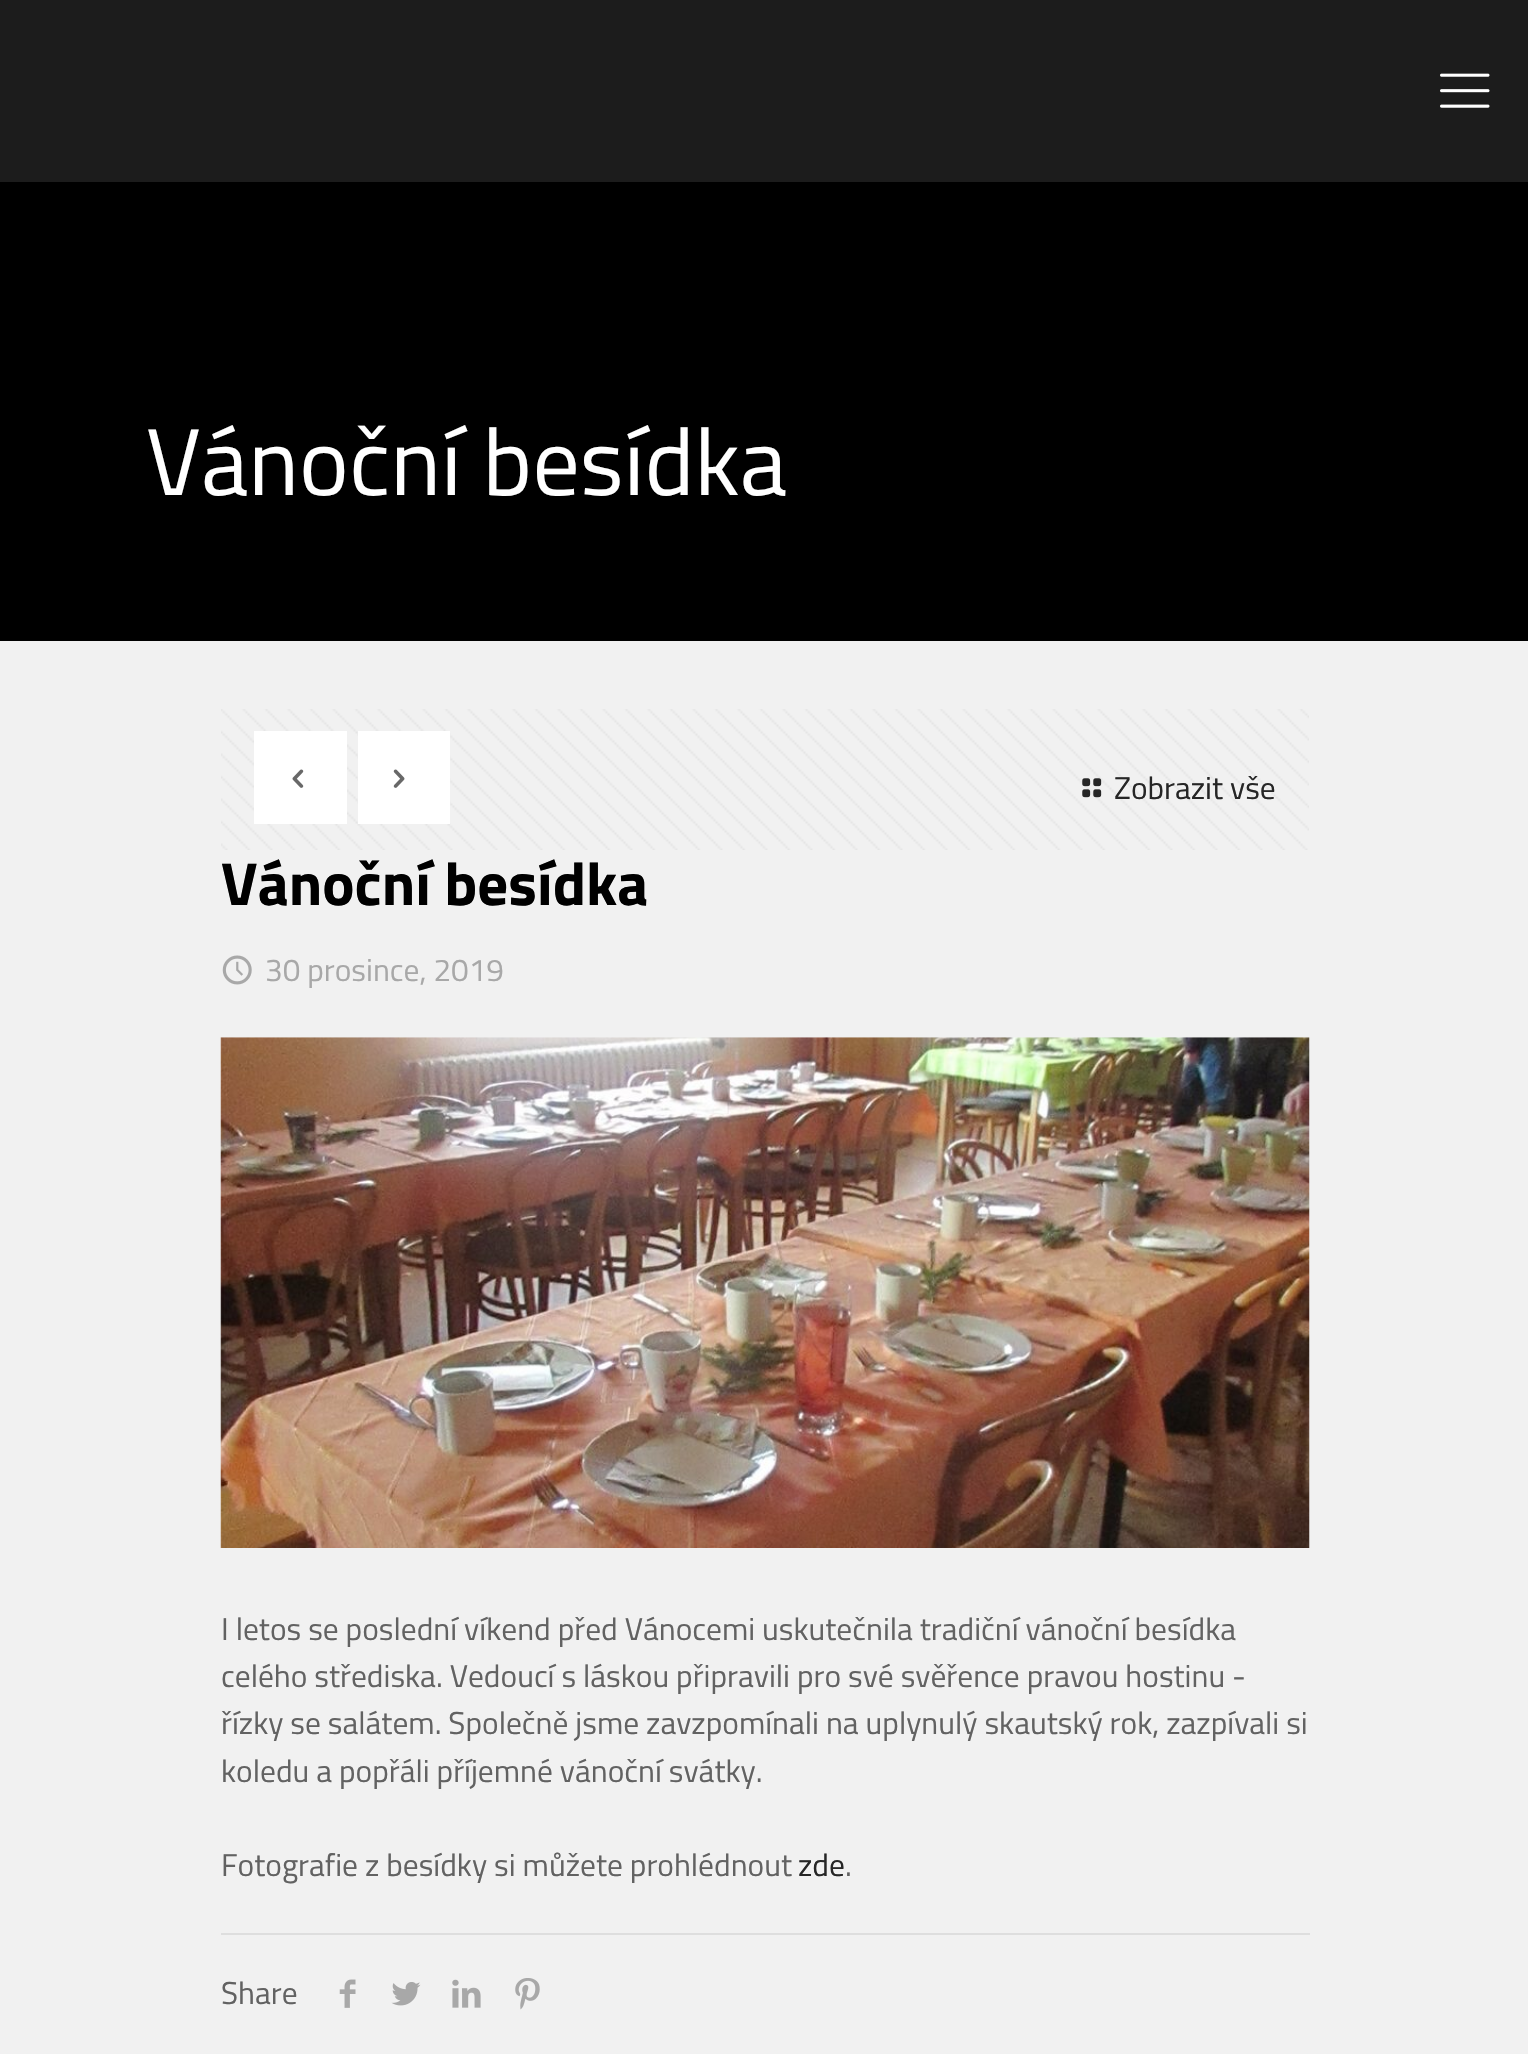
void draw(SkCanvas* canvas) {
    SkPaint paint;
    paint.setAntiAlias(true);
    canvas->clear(0xFFF1F1F1);
    paint.setColor(0xFF000000);
    canvas->drawRect(SkRect::MakeXYWH(0, 182, 1528, 459), paint);
    paint.setColor(0xFF1C1C1C);
    canvas->drawRect(SkRect::MakeXYWH(0, 0, 1528, 182), paint);
    canvas->drawImageRect(SkImages::DeferredFromEncodedData(SkData::MakeFromFileName("img1.png")), SkRect::MakeXYWH(1440, 73, 50, 35), SkSamplingOptions());
    SkFont font1(fontMgr->matchFamilyStyle("Titillium Web", SkFontStyle::Normal()), 94.5f);
    font1.setSubpixel(true);
    paint.setColor(0xFFFFFFFF);
    canvas->drawString("Vánoční besídka", 146, 495, font1, paint);
    canvas->drawImageRect(SkImages::DeferredFromEncodedData(SkData::MakeFromFileName("img2.png")), SkRect::MakeXYWH(221, 709, 1088, 141), SkSamplingOptions());
    canvas->drawRect(SkRect::MakeXYWH(254, 731, 93, 93), paint);
    canvas->drawImageRect(SkImages::DeferredFromEncodedData(SkData::MakeFromFileName("img3.png")), SkRect::MakeXYWH(292, 769, 12, 19), SkSamplingOptions());
    canvas->drawRect(SkRect::MakeXYWH(358, 731, 92, 93), paint);
    canvas->drawImageRect(SkImages::DeferredFromEncodedData(SkData::MakeFromFileName("img4.png")), SkRect::MakeXYWH(393, 769, 12, 19), SkSamplingOptions());
    canvas->drawImageRect(SkImages::DeferredFromEncodedData(SkData::MakeFromFileName("img5.png")), SkRect::MakeXYWH(1082, 778, 20, 20), SkSamplingOptions());
    SkFont font2(fontMgr->matchFamilyStyle("Titillium Web", SkFontStyle::Normal()), 31.5f);
    font2.setSubpixel(true);
    paint.setColor(0xFF262626);
    canvas->drawString("Zobrazit vše", 1114, 799, font2, paint);
    SkFont font3(fontMgr->matchFamilyStyle("Titillium Web", SkFontStyle::Bold()), 60.75f);
    font3.setSubpixel(true);
    paint.setColor(0xFF000000);
    canvas->drawString("Vánoční besídka", 221, 905, font3, paint);
    canvas->drawImageRect(SkImages::DeferredFromEncodedData(SkData::MakeFromFileName("img6.png")), SkRect::MakeXYWH(222, 955, 30, 30), SkSamplingOptions());
    paint.setColor(0xFFA8A8A8);
    canvas->drawString("30 prosince, 2019", 265, 981, font2, paint);
    canvas->drawImageRect(SkImages::DeferredFromEncodedData(SkData::MakeFromFileName("img7.png")), SkRect::MakeXYWH(220, 1037, 1090, 511), SkSamplingOptions());
    paint.setColor(0xFF626262);
    canvas->drawString("I letos se poslední víkend před Vánocemi uskutečnila tradiční vánoční besídka", 221, 1640, font2, paint);
    canvas->drawString("celého střediska. Vedoucí s láskou připravili pro své svěřence pravou hostinu -", 221, 1687, font2, paint);
    canvas->drawString("řízky se salátem. Společně jsme zavzpomínali na uplynulý skautský rok, zazpívali si", 221, 1734, font2, paint);
    canvas->drawString("koledu a popřáli příjemné vánoční svátky.", 221, 1782, font2, paint);
    canvas->drawString("Fotografie z besídky si můžete prohlédnout", 221, 1876, font2, paint);
    paint.setColor(0xFF262626);
    canvas->drawString("zde", 798, 1876, font2, paint);
    paint.setColor(0xFF626262);
    canvas->drawString(".", 845, 1876, font2, paint);
    paint.setColor(0xFFDEDEDE);
    canvas->drawRect(SkRect::MakeXYWH(221, 1933, 1089, 2), paint);
    paint.setColor(0xFF626262);
    canvas->drawString("Share", 221, 2004, font2, paint);
    canvas->drawImageRect(SkImages::DeferredFromEncodedData(SkData::MakeFromFileName("img8.png")), SkRect::MakeXYWH(339, 1979, 17, 29), SkSamplingOptions());
    canvas->drawImageRect(SkImages::DeferredFromEncodedData(SkData::MakeFromFileName("img9.png")), SkRect::MakeXYWH(391, 1982, 30, 24), SkSamplingOptions());
    canvas->drawImageRect(SkImages::DeferredFromEncodedData(SkData::MakeFromFileName("img10.png")), SkRect::MakeXYWH(452, 1979, 29, 29), SkSamplingOptions());
    canvas->drawImageRect(SkImages::DeferredFromEncodedData(SkData::MakeFromFileName("img11.png")), SkRect::MakeXYWH(515, 1978, 25, 32), SkSamplingOptions());
}
